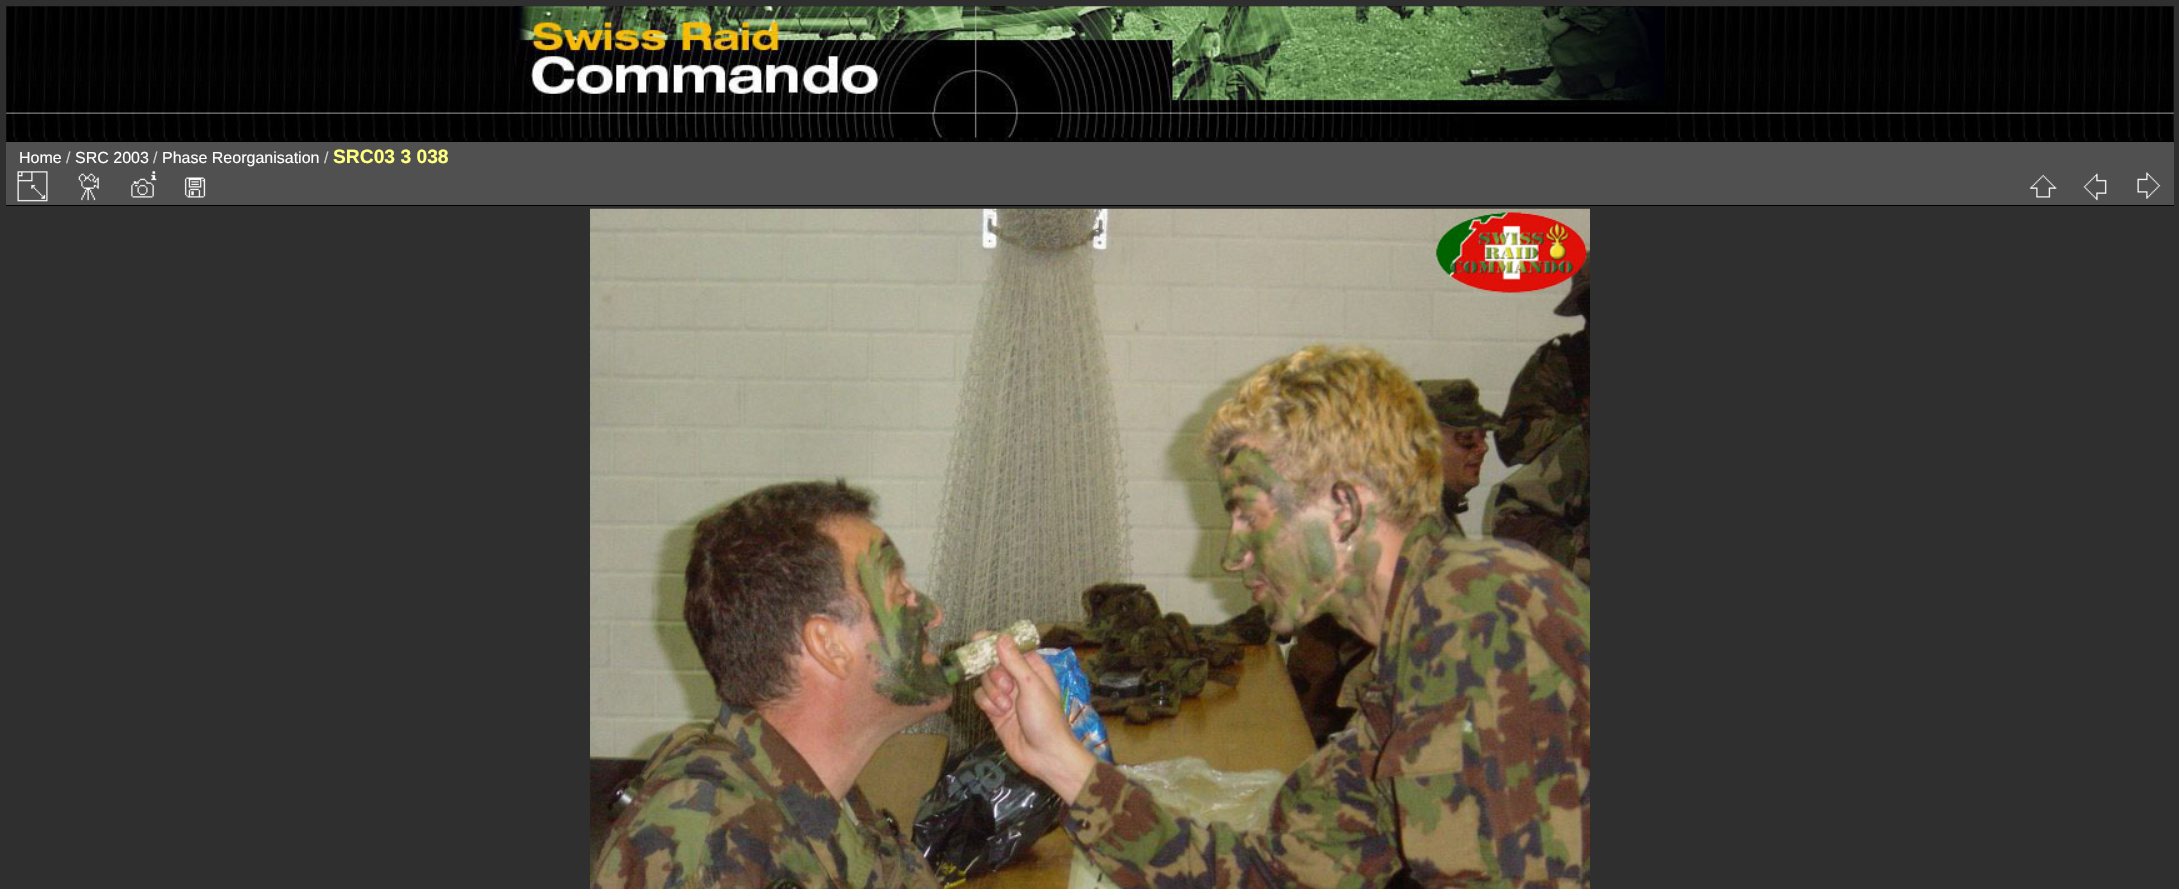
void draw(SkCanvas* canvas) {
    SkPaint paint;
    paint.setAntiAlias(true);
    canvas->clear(0xFF2F2F2F);
    canvas->drawImageRect(SkImages::DeferredFromEncodedData(SkData::MakeFromFileName("img1.png")), SkRect::MakeXYWH(6, 6, 2168, 135), SkSamplingOptions());
    canvas->drawImageRect(SkImages::DeferredFromEncodedData(SkData::MakeFromFileName("img2.png")), SkRect::MakeXYWH(515, 6, 1150, 132), SkSamplingOptions());
    paint.setColor(0xFF505050);
    canvas->drawRect(SkRect::MakeXYWH(6, 142, 2168, 63), paint);
    paint.setColor(0xFF000000);
    canvas->drawRect(SkRect::MakeXYWH(6, 205, 2168, 1), paint);
    canvas->drawImageRect(SkImages::DeferredFromEncodedData(SkData::MakeFromFileName("img3.png")), SkRect::MakeXYWH(17, 171, 31, 31), SkSamplingOptions());
    canvas->drawImageRect(SkImages::DeferredFromEncodedData(SkData::MakeFromFileName("img4.png")), SkRect::MakeXYWH(78, 173, 21, 28), SkSamplingOptions());
    canvas->drawImageRect(SkImages::DeferredFromEncodedData(SkData::MakeFromFileName("img5.png")), SkRect::MakeXYWH(131, 171, 26, 27), SkSamplingOptions());
    canvas->drawImageRect(SkImages::DeferredFromEncodedData(SkData::MakeFromFileName("img6.png")), SkRect::MakeXYWH(184, 177, 22, 21), SkSamplingOptions());
    canvas->drawImageRect(SkImages::DeferredFromEncodedData(SkData::MakeFromFileName("img7.png")), SkRect::MakeXYWH(2029, 174, 28, 24), SkSamplingOptions());
    canvas->drawImageRect(SkImages::DeferredFromEncodedData(SkData::MakeFromFileName("img8.png")), SkRect::MakeXYWH(2083, 173, 24, 28), SkSamplingOptions());
    canvas->drawImageRect(SkImages::DeferredFromEncodedData(SkData::MakeFromFileName("img9.png")), SkRect::MakeXYWH(2137, 172, 24, 27), SkSamplingOptions());
    canvas->drawRect(SkRect::MakeXYWH(6, 141, 2168, 1), paint);
    SkFont font1(fontMgr->matchFamilyStyle("Liberation Sans", SkFontStyle::Normal()), 16);
    font1.setSubpixel(true);
    paint.setColor(0xFFFFFFFF);
    canvas->drawString("Home", 19, 163, font1, paint);
    paint.setColor(0xFFD0D0D0);
    canvas->drawString("/", 66, 163, font1, paint);
    paint.setColor(0xFFFFFFFF);
    canvas->drawString("SRC 2003", 75, 163, font1, paint);
    paint.setColor(0xFFD0D0D0);
    canvas->drawString("/", 153, 163, font1, paint);
    paint.setColor(0xFFFFFFFF);
    canvas->drawString("Phase Reorganisation", 162, 163, font1, paint);
    paint.setColor(0xFFD0D0D0);
    canvas->drawString("/", 324, 163, font1, paint);
    SkFont font2(fontMgr->matchFamilyStyle("Liberation Sans", SkFontStyle::Bold()), 19.25f);
    font2.setSubpixel(true);
    paint.setColor(0xFFFFFF80);
    canvas->drawString("SRC03 3 038", 333, 163, font2, paint);
    canvas->drawImageRect(SkImages::DeferredFromEncodedData(SkData::MakeFromFileName("img10.png")), SkRect::MakeXYWH(590, 208, 1000, 681), SkSamplingOptions());
}
